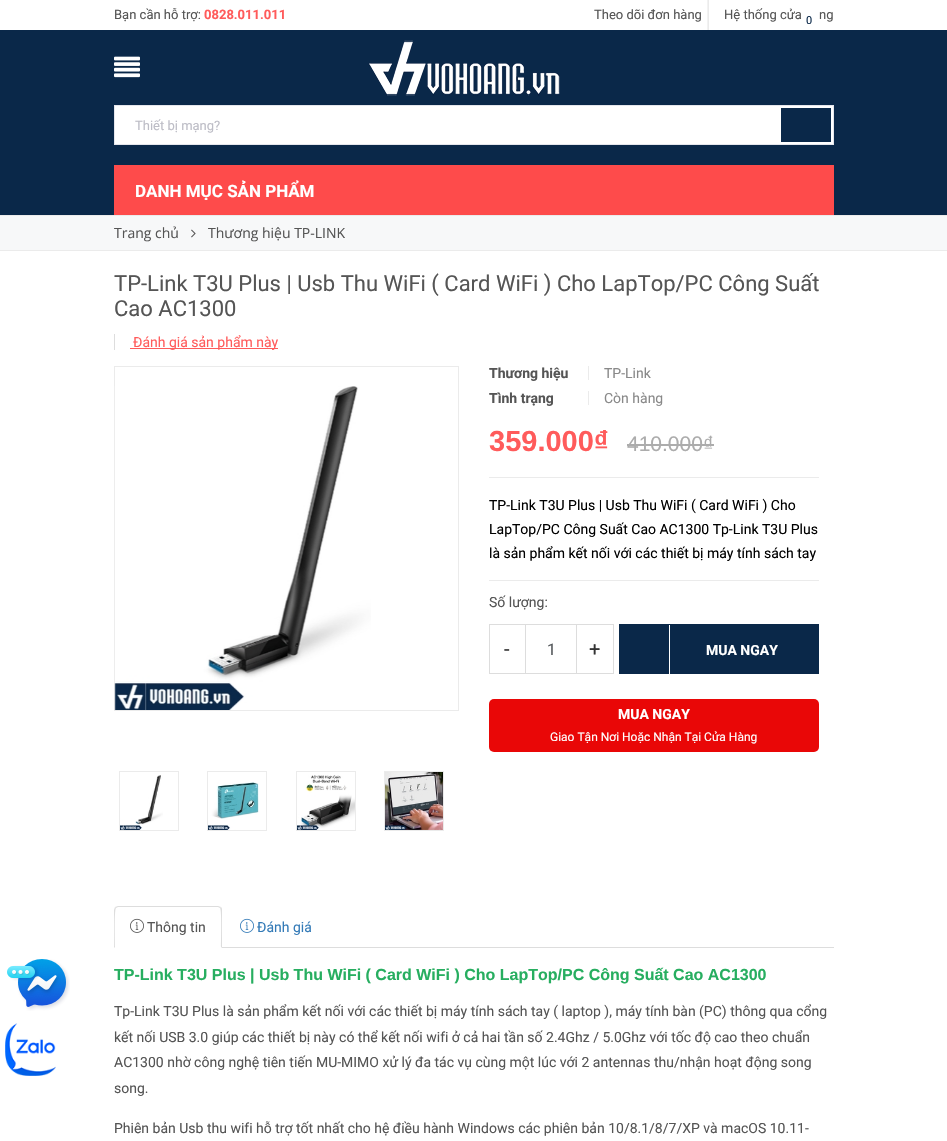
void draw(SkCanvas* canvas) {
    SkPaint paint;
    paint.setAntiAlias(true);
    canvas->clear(0xFFFFFFFF);
    canvas->drawImageRect(SkImages::DeferredFromEncodedData(SkData::MakeFromFileName("img1.png")), SkRect::MakeXYWH(7, 959, 63, 52), SkSamplingOptions());
    canvas->drawImageRect(SkImages::DeferredFromEncodedData(SkData::MakeFromFileName("img2.png")), SkRect::MakeXYWH(5, 1023, 51, 53), SkSamplingOptions());
    SkFont font1(fontMgr->matchFamilyStyle("Roboto", SkFontStyle::Normal()), 13);
    font1.setSubpixel(true);
    paint.setColor(0xFF555555);
    canvas->drawString("Bạn cần hỗ trợ:", 114, 19, font1, paint);
    SkFont font2(fontMgr->matchFamilyStyle("Roboto", SkFontStyle::Bold()), 13);
    font2.setSubpixel(true);
    paint.setColor(0xFFFF5B5B);
    canvas->drawString("0828.011.011", 204, 19, font2, paint);
    paint.setColor(0xFFF2F2F2);
    canvas->drawRect(SkRect::MakeXYWH(707, 0, 1, 30), paint);
    paint.setColor(0xFF555555);
    canvas->drawString("Theo dõi đơn hàng", 594, 19, font1, paint);
    paint.setColor(0xFFEBEBEB);
    canvas->drawRect(SkRect::MakeXYWH(708, 0, 1, 30), paint);
    paint.setColor(0xFF555555);
    canvas->drawString("Hệ thống cửa", 724, 19, font1, paint);
    canvas->drawString("ng", 819, 19, font1, paint);
    paint.setColor(0xFF0A2849);
    canvas->drawRect(SkRect::MakeXYWH(0, 30, 947, 185), paint);
    SkFont font3(fontMgr->matchFamilyStyle("Roboto", SkFontStyle::Normal()), 11);
    font3.setSubpixel(true);
    canvas->drawString("0", 806, 24, font3, paint);
    canvas->drawImageRect(SkImages::DeferredFromEncodedData(SkData::MakeFromFileName("img3.png")), SkRect::MakeXYWH(114, 56, 26, 22), SkSamplingOptions());
    canvas->drawImageRect(SkImages::DeferredFromEncodedData(SkData::MakeFromFileName("img4.png")), SkRect::MakeXYWH(368, 40, 192, 56), SkSamplingOptions());
    paint.setColor(0xFFFFFFFF);
    canvas->drawRect(SkRect::MakeXYWH(114.5f, 105.5f, 719, 39), paint);
    paint.setStyle(SkPaint::kStroke_Style);
    paint.setStrokeWidth(1);
    paint.setColor(0xFFE5E6EC);
    canvas->drawRect(SkRect::MakeXYWH(114.5f, 105.5f, 719, 39), paint);
    paint.setStyle(SkPaint::kFill_Style);
    paint.setColor(0xFFBDBDC6);
    canvas->drawString("Thiết bị mạng?", 135, 130, font1, paint);
    paint.setColor(0xFF0A2849);
    canvas->drawRect(SkRect::MakeXYWH(781, 108, 50, 34), paint);
    paint.setColor(0xFFFE4B4B);
    canvas->drawRect(SkRect::MakeXYWH(114, 165, 720, 50), paint);
    SkFont font4(fontMgr->matchFamilyStyle("Roboto", SkFontStyle::Bold()), 17);
    font4.setSubpixel(true);
    paint.setColor(0xFFFFFFFF);
    canvas->drawString("DANH MỤC SẢN PHẨM", 135, 197, font4, paint);
    paint.setColor(0xFFF7F8F9);
    canvas->drawRect(SkRect::MakeXYWH(0, 216, 947, 34), paint);
    paint.setColor(0xFFEBEBEB);
    canvas->drawRect(SkRect::MakeXYWH(0, 215, 947, 1), paint);
    canvas->drawRect(SkRect::MakeXYWH(0, 250, 947, 1), paint);
    SkFont font5(fontMgr->matchFamilyStyle("Open Sans", SkFontStyle::Normal()), 14);
    font5.setSubpixel(true);
    paint.setColor(0xFF555555);
    canvas->drawString("Trang chủ", 114, 238, font5, paint);
    canvas->drawImageRect(SkImages::DeferredFromEncodedData(SkData::MakeFromFileName("img5.png")), SkRect::MakeXYWH(191, 229, 5, 9), SkSamplingOptions());
    canvas->drawString("Thương hiệu TP-LINK", 208, 238, font5, paint);
    SkFont font6(fontMgr->matchFamilyStyle("Roboto", SkFontStyle::Normal()), 22);
    font6.setSubpixel(true);
    canvas->drawString("TP-Link T3U Plus | Usb Thu WiFi ( Card WiFi ) Cho LapTop/PC Công Suất", 114, 291, font6, paint);
    canvas->drawString("Cao AC1300", 114, 316, font6, paint);
    paint.setColor(0xFFFF5B5B);
    canvas->drawRect(SkRect::MakeXYWH(130, 348, 148, 1), paint);
    SkFont font7(fontMgr->matchFamilyStyle("Roboto", SkFontStyle::Normal()), 14);
    font7.setSubpixel(true);
    canvas->drawString("Đánh giá sản phẩm này", 133, 347, font7, paint);
    paint.setColor(0xFFDDDDDD);
    canvas->drawRect(SkRect::MakeXYWH(114, 334, 1, 16), paint);
    paint.setStyle(SkPaint::kStroke_Style);
    paint.setColor(0xFFEBEBEB);
    canvas->drawRect(SkRect::MakeXYWH(114.5f, 366.5f, 344, 344), paint);
    canvas->drawImageRect(SkImages::DeferredFromEncodedData(SkData::MakeFromFileName("img6.png")), SkRect::MakeXYWH(114, 386, 257, 324), SkSamplingOptions());
    canvas->drawRect(SkRect::MakeXYWH(119.5f, 771.5f, 59, 59), paint);
    canvas->drawImageRect(SkImages::DeferredFromEncodedData(SkData::MakeFromFileName("img7.png")), SkRect::MakeXYWH(120, 775, 43, 55), SkSamplingOptions());
    canvas->drawRect(SkRect::MakeXYWH(207.5f, 771.5f, 59, 59), paint);
    canvas->drawImageRect(SkImages::DeferredFromEncodedData(SkData::MakeFromFileName("img8.png")), SkRect::MakeXYWH(208, 782, 51, 48), SkSamplingOptions());
    canvas->drawRect(SkRect::MakeXYWH(296.5f, 771.5f, 59, 59), paint);
    canvas->drawImageRect(SkImages::DeferredFromEncodedData(SkData::MakeFromFileName("img9.png")), SkRect::MakeXYWH(297, 775, 58, 55), SkSamplingOptions());
    canvas->drawRect(SkRect::MakeXYWH(384.5f, 771.5f, 59, 59), paint);
    canvas->drawImageRect(SkImages::DeferredFromEncodedData(SkData::MakeFromFileName("img10.png")), SkRect::MakeXYWH(385, 772, 58, 58), SkSamplingOptions());
    paint.setStyle(SkPaint::kFill_Style);
    canvas->drawRect(SkRect::MakeXYWH(588, 366, 1, 14), paint);
    SkFont font8(fontMgr->matchFamilyStyle("Roboto", SkFontStyle::Bold()), 14);
    font8.setSubpixel(true);
    paint.setColor(0xFF555555);
    canvas->drawString("Thương hiệu", 489, 378, font8, paint);
    paint.setColor(0xFF898989);
    canvas->drawString("TP-Link", 604, 378, font7, paint);
    paint.setColor(0xFFEBEBEB);
    canvas->drawRect(SkRect::MakeXYWH(588, 391, 1, 14), paint);
    paint.setColor(0xFF555555);
    canvas->drawString("Tình trạng", 489, 403, font8, paint);
    paint.setColor(0xFF898989);
    canvas->drawString("Còn hàng", 604, 403, font7, paint);
    SkFont font9(fontMgr->matchFamilyStyle("Liberation Sans", SkFontStyle::Bold()), 29);
    font9.setSubpixel(true);
    paint.setColor(0xFFFF5B5B);
    canvas->drawString("359.000₫", 489, 451, font9, paint);
    SkFont font10(fontMgr->matchFamilyStyle("Liberation Sans", SkFontStyle::Normal()), 21);
    font10.setSubpixel(true);
    paint.setColor(0xFFACACAC);
    canvas->drawString("410.000₫", 627, 451, font10, paint);
    canvas->drawRect(SkRect::MakeXYWH(627, 444, 87, 2), paint);
    paint.setColor(0xFFEBEBEB);
    canvas->drawRect(SkRect::MakeXYWH(489, 477, 330, 1), paint);
    paint.setColor(0xFF000000);
    canvas->drawString("TP-Link T3U Plus | Usb Thu WiFi ( Card WiFi ) Cho", 489, 510, font7, paint);
    canvas->drawString("LapTop/PC Công Suất Cao AC1300 Tp-Link T3U Plus", 489, 534, font7, paint);
    canvas->drawString("là sản phẩm kết nối với các thiết bị máy tính sách tay", 489, 558, font7, paint);
    paint.setColor(0xFFEBEBEB);
    canvas->drawRect(SkRect::MakeXYWH(489, 580, 330, 1), paint);
    paint.setColor(0xFF555555);
    canvas->drawString("Số lượng:", 489, 607, font7, paint);
    paint.setStyle(SkPaint::kStroke_Style);
    paint.setColor(0xFFDDDDDD);
    canvas->drawRect(SkRect::MakeXYWH(489.5f, 624.5f, 36, 49), paint);
    SkFont font11(fontMgr->matchFamilyStyle("Roboto", SkFontStyle::Normal()), 20);
    font11.setSubpixel(true);
    paint.setStyle(SkPaint::kFill_Style);
    paint.setColor(0xFF333333);
    canvas->drawString("-", 504, 656, font11, paint);
    paint.setColor(0xFFDDDDDD);
    canvas->drawRect(SkRect::MakeXYWH(526, 624, 50, 1), paint);
    canvas->drawRect(SkRect::MakeXYWH(526, 673, 50, 1), paint);
    SkFont font12(fontMgr->matchFamilyStyle("Roboto", SkFontStyle::Normal()), 16);
    font12.setSubpixel(true);
    paint.setColor(0xFF55595C);
    canvas->drawString("1", 547, 655, font12, paint);
    paint.setStyle(SkPaint::kStroke_Style);
    paint.setColor(0xFFDDDDDD);
    canvas->drawRect(SkRect::MakeXYWH(576.5f, 624.5f, 37, 49), paint);
    paint.setStyle(SkPaint::kFill_Style);
    paint.setColor(0xFF333333);
    canvas->drawString("+", 589, 656, font11, paint);
    paint.setColor(0xFF0A2849);
    canvas->drawRect(SkRect::MakeXYWH(619, 624, 200, 50), paint);
    paint.setColor(0xFFFFFFFF);
    canvas->drawRect(SkRect::MakeXYWH(669, 625, 1, 49), paint);
    canvas->drawString("MUA NGAY", 706, 655, font8, paint);
    paint.setColor(0xFFE90707);
    canvas->drawRoundRect(SkRect::MakeXYWH(489, 699, 330, 53), 5, 5, paint);
    paint.setColor(0xFFFFFFFF);
    canvas->drawString("MUA NGAY", 618, 719, font8, paint);
    SkFont font13(fontMgr->matchFamilyStyle("Roboto", SkFontStyle::Normal()), 12);
    font13.setSubpixel(true);
    canvas->drawString("Giao Tận Nơi Hoặc Nhận Tại Cửa Hàng", 550, 741, font13, paint);
    paint.setColor(0xFFDDDDDD);
    canvas->drawRect(SkRect::MakeXYWH(222, 947, 612, 1), paint);
    canvas->drawPath(SkPathBuilder().moveTo(118, 906).lineTo(115, 907).lineTo(116, 908).lineTo(118, 907).lineTo(218, 907).lineTo(220, 908).lineTo(221, 907).lineTo(218, 906).close().detach(), paint);
    canvas->drawPath(SkPathBuilder().moveTo(222, 948).lineTo(222, 910).cubicTo(222, 909, 222, 908, 221, 907).lineTo(220, 908).cubicTo(222, 910, 221, 942, 221, 947).close().detach(), paint);
    canvas->drawPath(SkPathBuilder().moveTo(114, 948).lineTo(115, 947).cubicTo(115, 942, 114, 910, 116, 908).lineTo(115, 907).lineTo(114, 910).close().detach(), paint);
    canvas->drawImageRect(SkImages::DeferredFromEncodedData(SkData::MakeFromFileName("img11.png")), SkRect::MakeXYWH(130, 918, 14, 15), SkSamplingOptions());
    paint.setColor(0xFF555555);
    canvas->drawString("Thông tin", 147, 932, font7, paint);
    canvas->drawImageRect(SkImages::DeferredFromEncodedData(SkData::MakeFromFileName("img12.png")), SkRect::MakeXYWH(240, 918, 14, 15), SkSamplingOptions());
    paint.setColor(0xFF337AB7);
    canvas->drawString("Đánh giá", 257, 932, font7, paint);
    SkFont font14(fontMgr->matchFamilyStyle("Liberation Sans", SkFontStyle::Bold()), 16);
    font14.setSubpixel(true);
    paint.setColor(0xFF27AE60);
    canvas->drawString("TP-Link T3U Plus | Usb Thu WiFi ( Card WiFi ) Cho LapTop/PC Công Suất Cao AC1300", 114, 980, font14, paint);
    paint.setColor(0xFF555555);
    canvas->drawString("Tp-Link T3U Plus là sản phẩm kết nối với các thiết bị máy tính sách tay ( laptop ), máy tính bàn (PC) thông qua cổng", 114, 1016, font7, paint);
    canvas->drawString("kết nối USB 3.0 giúp các thiết bị này có thể kết nối wifi ở cả hai tần số 2.4Ghz / 5.0Ghz với tốc độ cao theo chuẩn", 114, 1042, font7, paint);
    canvas->drawString("AC1300 nhờ công nghệ tiên tiến MU-MIMO xử lý đa tác vụ cùng một lúc với 2 antennas thu/nhận hoạt động song", 114, 1067, font7, paint);
    canvas->drawString("song.", 114, 1093, font7, paint);
    canvas->drawString("Phiên bản Usb thu wifi hỗ trợ tốt nhất cho hệ điều hành Windows các phiên bản 10/8.1/8/7/XP và macOS 10.11-", 114, 1133, font7, paint);
}
